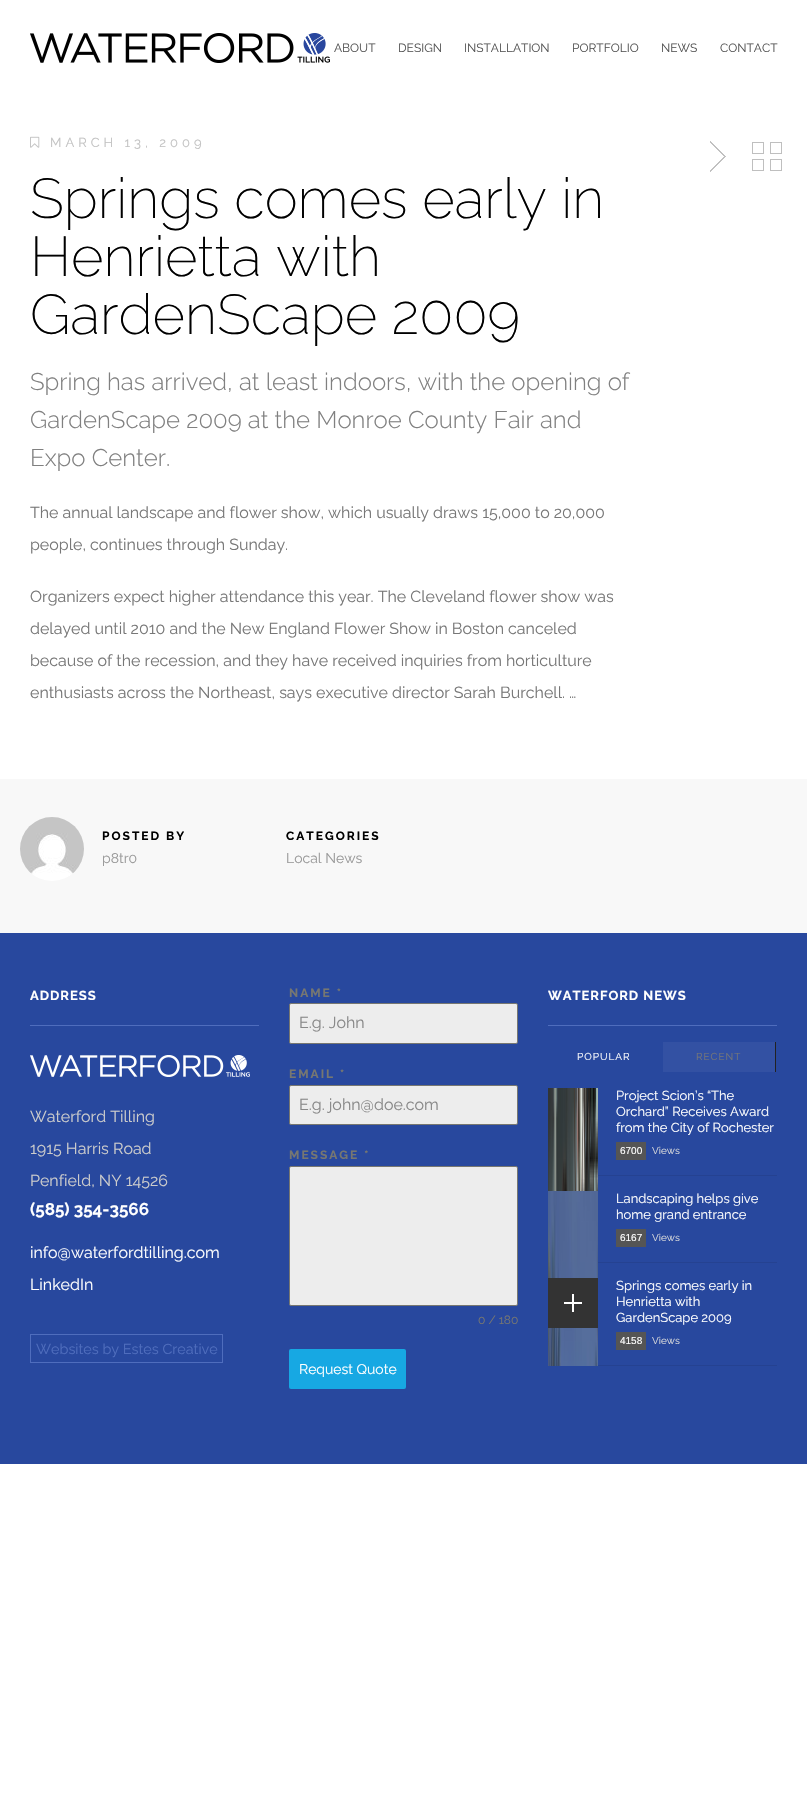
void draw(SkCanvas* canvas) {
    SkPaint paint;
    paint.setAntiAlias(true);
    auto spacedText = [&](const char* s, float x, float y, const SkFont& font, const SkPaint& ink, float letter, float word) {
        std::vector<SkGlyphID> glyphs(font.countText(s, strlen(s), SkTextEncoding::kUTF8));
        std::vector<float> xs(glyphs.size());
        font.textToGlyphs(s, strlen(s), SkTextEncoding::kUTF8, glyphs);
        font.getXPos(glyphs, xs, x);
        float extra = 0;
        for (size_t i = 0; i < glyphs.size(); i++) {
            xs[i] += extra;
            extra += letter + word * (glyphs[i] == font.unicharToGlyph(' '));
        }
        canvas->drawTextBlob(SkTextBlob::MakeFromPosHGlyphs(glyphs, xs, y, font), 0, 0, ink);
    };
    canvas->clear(0xFFFFFFFF);
    canvas->drawImageRect(SkImages::DeferredFromEncodedData(SkData::MakeFromFileName("img1.png")), SkRect::MakeXYWH(30, 33, 300, 30), SkSamplingOptions());
    SkFont font1(fontMgr->matchFamilyStyle("Raleway", SkFontStyle::Normal()), 12);
    font1.setSubpixel(true);
    paint.setColor(0xFF555555);
    canvas->drawString("ABOUT", 334, 52, font1, paint);
    canvas->drawString("DESIGN", 398, 52, font1, paint);
    canvas->drawString("INSTALLATION", 464, 52, font1, paint);
    canvas->drawString("PORTFOLIO", 572, 52, font1, paint);
    canvas->drawString("NEWS", 661, 52, font1, paint);
    canvas->drawString("CONTACT", 720, 52, font1, paint);
    canvas->drawImageRect(SkImages::DeferredFromEncodedData(SkData::MakeFromFileName("img2.png")), SkRect::MakeXYWH(30, 136, 10, 12), SkSamplingOptions());
    SkFont font2(fontMgr->matchFamilyStyle("Raleway", SkFontStyle::Normal()), 13);
    font2.setSubpixel(true);
    paint.setColor(0xFFC2C2C2);
    spacedText("MARCH 13, 2009", 50, 147, font2, paint, 4, 0);
    SkFont font3(fontMgr->matchFamilyStyle("Raleway", SkFontStyle(200, SkFontStyle::kNormal_Width, SkFontStyle::kUpright_Slant)), 56);
    font3.setSubpixel(true);
    paint.setColor(0xFF000000);
    canvas->drawString("Springs comes early in", 30, 218, font3, paint);
    canvas->drawString("Henrietta with", 30, 276, font3, paint);
    canvas->drawString("GardenScape 2009", 30, 334, font3, paint);
    SkFont font4(fontMgr->matchFamilyStyle("Raleway", SkFontStyle(300, SkFontStyle::kNormal_Width, SkFontStyle::kUpright_Slant)), 24);
    font4.setSubpixel(true);
    paint.setColor(0xFF808080);
    canvas->drawString("Spring has arrived, at least indoors, with the opening of", 30, 390, font4, paint);
    canvas->drawString("GardenScape 2009 at the Monroe County Fair and", 30, 428, font4, paint);
    canvas->drawString("Expo Center.", 30, 466, font4, paint);
    canvas->drawImageRect(SkImages::DeferredFromEncodedData(SkData::MakeFromFileName("img3.png")), SkRect::MakeXYWH(710, 141, 16, 31), SkSamplingOptions());
    canvas->drawImageRect(SkImages::DeferredFromEncodedData(SkData::MakeFromFileName("img4.png")), SkRect::MakeXYWH(752, 142, 30, 29), SkSamplingOptions());
    SkFont font5(fontMgr->matchFamilyStyle("Raleway", SkFontStyle::Normal()), 16);
    font5.setSubpixel(true);
    paint.setColor(0xFF777777);
    canvas->drawString("The annual landscape and flower show, which usually draws 15,000 to 20,000", 30, 518, font5, paint);
    canvas->drawString("people, continues through Sunday.", 30, 550, font5, paint);
    canvas->drawString("Organizers expect higher attendance this year. The Cleveland flower show was", 30, 602, font5, paint);
    canvas->drawString("delayed until 2010 and the New England Flower Show in Boston canceled", 30, 634, font5, paint);
    canvas->drawString("because of the recession, and they have received inquiries from horticulture", 30, 666, font5, paint);
    canvas->drawString("enthusiasts across the Northeast, says executive director Sarah Burchell. …", 30, 698, font5, paint);
    paint.setColor(0xFFF8F8F8);
    canvas->drawRect(SkRect::MakeXYWH(0, 779, 807, 154), paint);
    canvas->drawImageRect(SkImages::DeferredFromEncodedData(SkData::MakeFromFileName("img5.png")), SkRect::MakeXYWH(20, 817, 64, 64), SkSamplingOptions());
    SkFont font6(fontMgr->matchFamilyStyle("Raleway", SkFontStyle::Bold()), 12);
    font6.setSubpixel(true);
    paint.setColor(0xFF000000);
    spacedText("POSTED BY", 102, 840, font6, paint, 2, 0);
    SkFont font7(fontMgr->matchFamilyStyle("Raleway", SkFontStyle::Normal()), 14);
    font7.setSubpixel(true);
    paint.setColor(0xFF999999);
    canvas->drawString("p8tr0", 102, 863, font7, paint);
    paint.setColor(0xFF000000);
    spacedText("CATEGORIES", 286, 840, font6, paint, 2, 0);
    paint.setColor(0xFF999999);
    canvas->drawString("Local News", 286, 863, font7, paint);
    paint.setColor(0xFF28489E);
    canvas->drawRect(SkRect::MakeXYWH(0, 933, 807, 531), paint);
    paint.setColor(0xFF4F6DBD);
    canvas->drawRect(SkRect::MakeXYWH(30, 1025, 229, 1), paint);
    SkFont font8(fontMgr->matchFamilyStyle("Raleway", SkFontStyle::Bold()), 13);
    font8.setSubpixel(true);
    paint.setColor(0xFFFFFFFF);
    spacedText("ADDRESS", 30, 1000, font8, paint, 1, 0);
    canvas->drawImageRect(SkImages::DeferredFromEncodedData(SkData::MakeFromFileName("img6.png")), SkRect::MakeXYWH(30, 1055, 220, 22), SkSamplingOptions());
    paint.setColor(0xFFCCCCCC);
    canvas->drawString("Waterford Tilling", 30, 1122, font5, paint);
    canvas->drawString("1915 Harris Road", 30, 1154, font5, paint);
    canvas->drawString("Penfield, NY 14526", 30, 1186, font5, paint);
    SkFont font9(fontMgr->matchFamilyStyle("Raleway", SkFontStyle::Bold()), 17);
    font9.setSubpixel(true);
    paint.setColor(0xFFFFFFFF);
    canvas->drawString("(585) 354-3566", 30, 1215, font9, paint);
    canvas->drawString("info@waterfordtilling.com", 30, 1258, font5, paint);
    canvas->drawString("LinkedIn", 30, 1290, font5, paint);
    paint.setStyle(SkPaint::kStroke_Style);
    paint.setStrokeWidth(1);
    paint.setColor(0xFF4F6DBD);
    canvas->drawRect(SkRect::MakeXYWH(30.5f, 1334.5f, 192, 28), paint);
    SkFont font10(fontMgr->matchFamilyStyle("Raleway", SkFontStyle::Normal()), 14.4f);
    font10.setSubpixel(true);
    paint.setStyle(SkPaint::kFill_Style);
    canvas->drawString("Websites by Estes Creative", 36, 1354, font10, paint);
    paint.setColor(0xFF777771);
    spacedText("NAME *", 289, 997, font6, paint, 2, 0);
    paint.setColor(0xFFEDEDED);
    canvas->drawRoundRect(SkRect::MakeXYWH(289.5f, 1003.5f, 228, 40), 1.5f, 1.5f, paint);
    paint.setStyle(SkPaint::kStroke_Style);
    paint.setColor(0xFF777771);
    canvas->drawRoundRect(SkRect::MakeXYWH(289.5f, 1003.5f, 228, 40), 1.5f, 1.5f, paint);
    paint.setStyle(SkPaint::kFill_Style);
    paint.setColor(0xFF888888);
    canvas->drawString("E.g. John", 299, 1028, font5, paint);
    paint.setColor(0xFF777771);
    spacedText("EMAIL *", 289, 1078, font6, paint, 2, 0);
    paint.setColor(0xFFEDEDED);
    canvas->drawRoundRect(SkRect::MakeXYWH(289.5f, 1085.5f, 228, 39), 1.5f, 1.5f, paint);
    paint.setStyle(SkPaint::kStroke_Style);
    paint.setColor(0xFF777771);
    canvas->drawRoundRect(SkRect::MakeXYWH(289.5f, 1085.5f, 228, 39), 1.5f, 1.5f, paint);
    paint.setStyle(SkPaint::kFill_Style);
    paint.setColor(0xFF888888);
    canvas->drawString("E.g. john@doe.com", 299, 1110, font5, paint);
    paint.setColor(0xFF777771);
    spacedText("MESSAGE *", 289, 1159, font6, paint, 2, 0);
    paint.setColor(0xFFEDEDED);
    canvas->drawRoundRect(SkRect::MakeXYWH(289.5f, 1166.5f, 228, 139), 1.5f, 1.5f, paint);
    paint.setStyle(SkPaint::kStroke_Style);
    paint.setColor(0xFF777771);
    canvas->drawRoundRect(SkRect::MakeXYWH(289.5f, 1166.5f, 228, 139), 1.5f, 1.5f, paint);
    paint.setStyle(SkPaint::kFill_Style);
    canvas->drawString("0 / 180", 478, 1324, font1, paint);
    paint.setColor(0xFF17A8E3);
    canvas->drawRoundRect(SkRect::MakeXYWH(289, 1349, 117, 40), 2, 2, paint);
    paint.setColor(0xFFFFFFFF);
    canvas->drawString("Request Quote", 299, 1374, font7, paint);
    paint.setColor(0xFF4F6DBD);
    canvas->drawRect(SkRect::MakeXYWH(548, 1025, 229, 1), paint);
    paint.setColor(0xFFFFFFFF);
    spacedText("WATERFORD NEWS", 548, 1000, font8, paint, 1, 0);
    SkFont font11(fontMgr->matchFamilyStyle("Raleway", SkFontStyle::Normal()), 10);
    font11.setSubpixel(true);
    spacedText("POPULAR", 577, 1060, font11, paint, 1, 0);
    paint.setColor(0xFF3351A3);
    canvas->drawRect(SkRect::MakeXYWH(663, 1042, 112, 30), paint);
    paint.setColor(0xFF222222);
    canvas->drawRect(SkRect::MakeXYWH(775, 1042, 1, 30), paint);
    paint.setColor(0xFF777777);
    spacedText("RECENT", 696, 1060, font11, paint, 1, 0);
    paint.setColor(0xFF254291);
    canvas->drawRect(SkRect::MakeXYWH(598, 1175, 179, 1), paint);
    canvas->drawImageRect(SkImages::DeferredFromEncodedData(SkData::MakeFromFileName("img7.png")), SkRect::MakeXYWH(548, 1088, 50, 103), SkSamplingOptions());
    paint.setColor(0xFFFFFFFF);
    canvas->drawString("Project Scion’s “The", 616, 1100, font2, paint);
    canvas->drawString("Orchard” Receives Award", 616, 1116, font2, paint);
    canvas->drawString("from the City of Rochester", 616, 1132, font2, paint);
    paint.setColor(0xFF555555);
    canvas->drawRect(SkRect::MakeXYWH(616, 1142, 30, 18), paint);
    SkFont font12(fontMgr->matchFamilyStyle("Liberation Sans", SkFontStyle::Normal()), 10);
    font12.setSubpixel(true);
    paint.setColor(0xFFFFFFFF);
    canvas->drawString("6700", 620, 1154, font12, paint);
    paint.setColor(0xFFDCDCDC);
    canvas->drawString("Views", 652, 1154, font11, paint);
    paint.setColor(0xFF254291);
    canvas->drawRect(SkRect::MakeXYWH(598, 1262, 179, 1), paint);
    canvas->drawImageRect(SkImages::DeferredFromEncodedData(SkData::MakeFromFileName("img8.png")), SkRect::MakeXYWH(548, 1191, 50, 175), SkSamplingOptions());
    paint.setColor(0xFFFFFFFF);
    canvas->drawString("Landscaping helps give", 616, 1203, font2, paint);
    canvas->drawString("home grand entrance", 616, 1219, font2, paint);
    paint.setColor(0xFF555555);
    canvas->drawRect(SkRect::MakeXYWH(616, 1229, 30, 18), paint);
    paint.setColor(0xFFFFFFFF);
    canvas->drawString("6167", 620, 1241, font12, paint);
    paint.setColor(0xFFDCDCDC);
    canvas->drawString("Views", 652, 1241, font11, paint);
    paint.setColor(0xFF254291);
    canvas->drawRect(SkRect::MakeXYWH(598, 1365, 179, 1), paint);
    paint.setColor(0xFF333333);
    canvas->drawRect(SkRect::MakeXYWH(548, 1278, 50, 50), paint);
    canvas->drawImageRect(SkImages::DeferredFromEncodedData(SkData::MakeFromFileName("img9.png")), SkRect::MakeXYWH(564, 1294, 18, 18), SkSamplingOptions());
    paint.setColor(0xFFFFFFFF);
    canvas->drawString("Springs comes early in", 616, 1290, font2, paint);
    canvas->drawString("Henrietta with", 616, 1306, font2, paint);
    canvas->drawString("GardenScape 2009", 616, 1322, font2, paint);
    paint.setColor(0xFF555555);
    canvas->drawRect(SkRect::MakeXYWH(616, 1332, 30, 18), paint);
    paint.setColor(0xFFFFFFFF);
    canvas->drawString("4158", 620, 1344, font12, paint);
    paint.setColor(0xFFDCDCDC);
    canvas->drawString("Views", 652, 1344, font11, paint);
}
